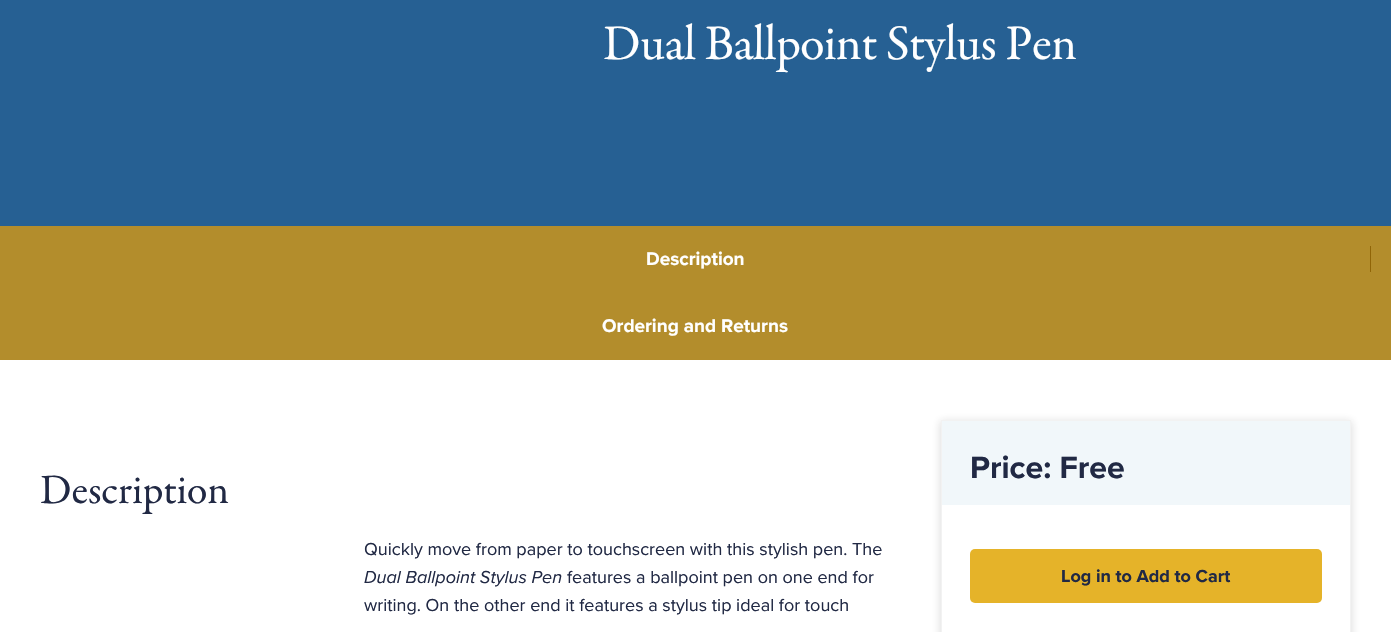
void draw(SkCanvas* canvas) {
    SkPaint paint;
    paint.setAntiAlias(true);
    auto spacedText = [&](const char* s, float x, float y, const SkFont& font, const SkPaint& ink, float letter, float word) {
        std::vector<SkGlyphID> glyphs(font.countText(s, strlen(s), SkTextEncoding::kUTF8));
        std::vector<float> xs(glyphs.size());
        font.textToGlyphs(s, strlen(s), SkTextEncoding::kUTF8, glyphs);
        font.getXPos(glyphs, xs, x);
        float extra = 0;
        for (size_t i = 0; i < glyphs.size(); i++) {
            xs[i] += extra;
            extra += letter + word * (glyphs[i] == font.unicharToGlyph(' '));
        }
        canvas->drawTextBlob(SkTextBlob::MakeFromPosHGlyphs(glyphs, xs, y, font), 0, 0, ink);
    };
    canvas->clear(0xFFFFFFFF);
    paint.setColor(0xFF266093);
    canvas->drawRect(SkRect::MakeXYWH(0, 0, 1391, 226), paint);
    SkFont font1(fontMgr->matchFamilyStyle("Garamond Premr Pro", SkFontStyle::Normal()), 50);
    font1.setSubpixel(true);
    paint.setColor(0xFFFFFFFF);
    spacedText("Dual Ballpoint Stylus Pen", 603, 59, font1, paint, -0.6f, 0);
    paint.setColor(0xFFB38D2C);
    canvas->drawRect(SkRect::MakeXYWH(0, 226, 1391, 134), paint);
    SkFont font2(fontMgr->matchFamilyStyle("Proxima Nova", SkFontStyle::Bold()), 19);
    font2.setSubpixel(true);
    paint.setColor(0xFFFFFFFF);
    canvas->drawString("Description", 646, 265, font2, paint);
    paint.setColor(0xFF906507);
    canvas->drawRect(SkRect::MakeXYWH(1370, 246, 1, 26), paint);
    paint.setColor(0xFFFFFFFF);
    canvas->drawString("Ordering and Returns", 602, 332, font2, paint);
    SkFont font3(fontMgr->matchFamilyStyle("Garamond Premr Pro", SkFontStyle::Normal()), 42);
    font3.setSubpixel(true);
    paint.setColor(0xFF212944);
    spacedText("Description", 40, 503, font3, paint, -0.1f, 0);
    SkFont font4(fontMgr->matchFamilyStyle("Proxima Nova", SkFontStyle::Normal()), 18);
    font4.setSubpixel(true);
    canvas->drawString("Quickly move from paper to touchscreen with this stylish pen. The", 364, 555, font4, paint);
    SkFont font5(fontMgr->matchFamilyStyle("Proxima Nova", SkFontStyle::Italic()), 18);
    font5.setSubpixel(true);
    canvas->drawString("Dual Ballpoint Stylus Pen", 364, 583, font5, paint);
    canvas->drawString("features a ballpoint pen on one end for", 567, 583, font4, paint);
    canvas->drawString("writing. On the other end it features a stylus tip ideal for touch", 364, 611, font4, paint);
    canvas->save();
    canvas->clipPath(SkPathBuilder(SkPathFillType::kEvenOdd).moveTo(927, 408).lineTo(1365, 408).lineTo(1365, 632).lineTo(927, 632).close().moveTo(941, 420).lineTo(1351, 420).lineTo(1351, 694).lineTo(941, 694).close().detach(), true);
    paint.setColor(0x26232323);
    paint.setMaskFilter(SkMaskFilter::MakeBlur(kNormal_SkBlurStyle, 4));
    canvas->drawRect(SkRect::MakeXYWH(940, 421, 412, 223), paint);
    paint.setMaskFilter(nullptr);
    canvas->restore();
    paint.setStyle(SkPaint::kStroke_Style);
    paint.setStrokeWidth(1);
    paint.setColor(0xFFF2F2F2);
    canvas->drawRect(SkRect::MakeXYWH(941.5f, 420.5f, 409, 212), paint);
    paint.setStyle(SkPaint::kFill_Style);
    paint.setColor(0xFFF1F7FA);
    canvas->drawRect(SkRect::MakeXYWH(942, 421, 408, 84), paint);
    SkFont font6(fontMgr->matchFamilyStyle("Proxima Nova", SkFontStyle::Bold()), 32);
    font6.setSubpixel(true);
    paint.setColor(0xFF212944);
    canvas->drawString("Price: Free", 970, 478, font6, paint);
    paint.setColor(0xFFE5B329);
    canvas->drawRoundRect(SkRect::MakeXYWH(970, 549, 352, 54), 5, 5, paint);
    SkFont font7(fontMgr->matchFamilyStyle("Proxima Nova", SkFontStyle::Bold()), 18);
    font7.setSubpixel(true);
    paint.setColor(0xFF212944);
    canvas->drawString("Log in to Add to Cart", 1061, 582, font7, paint);
}
